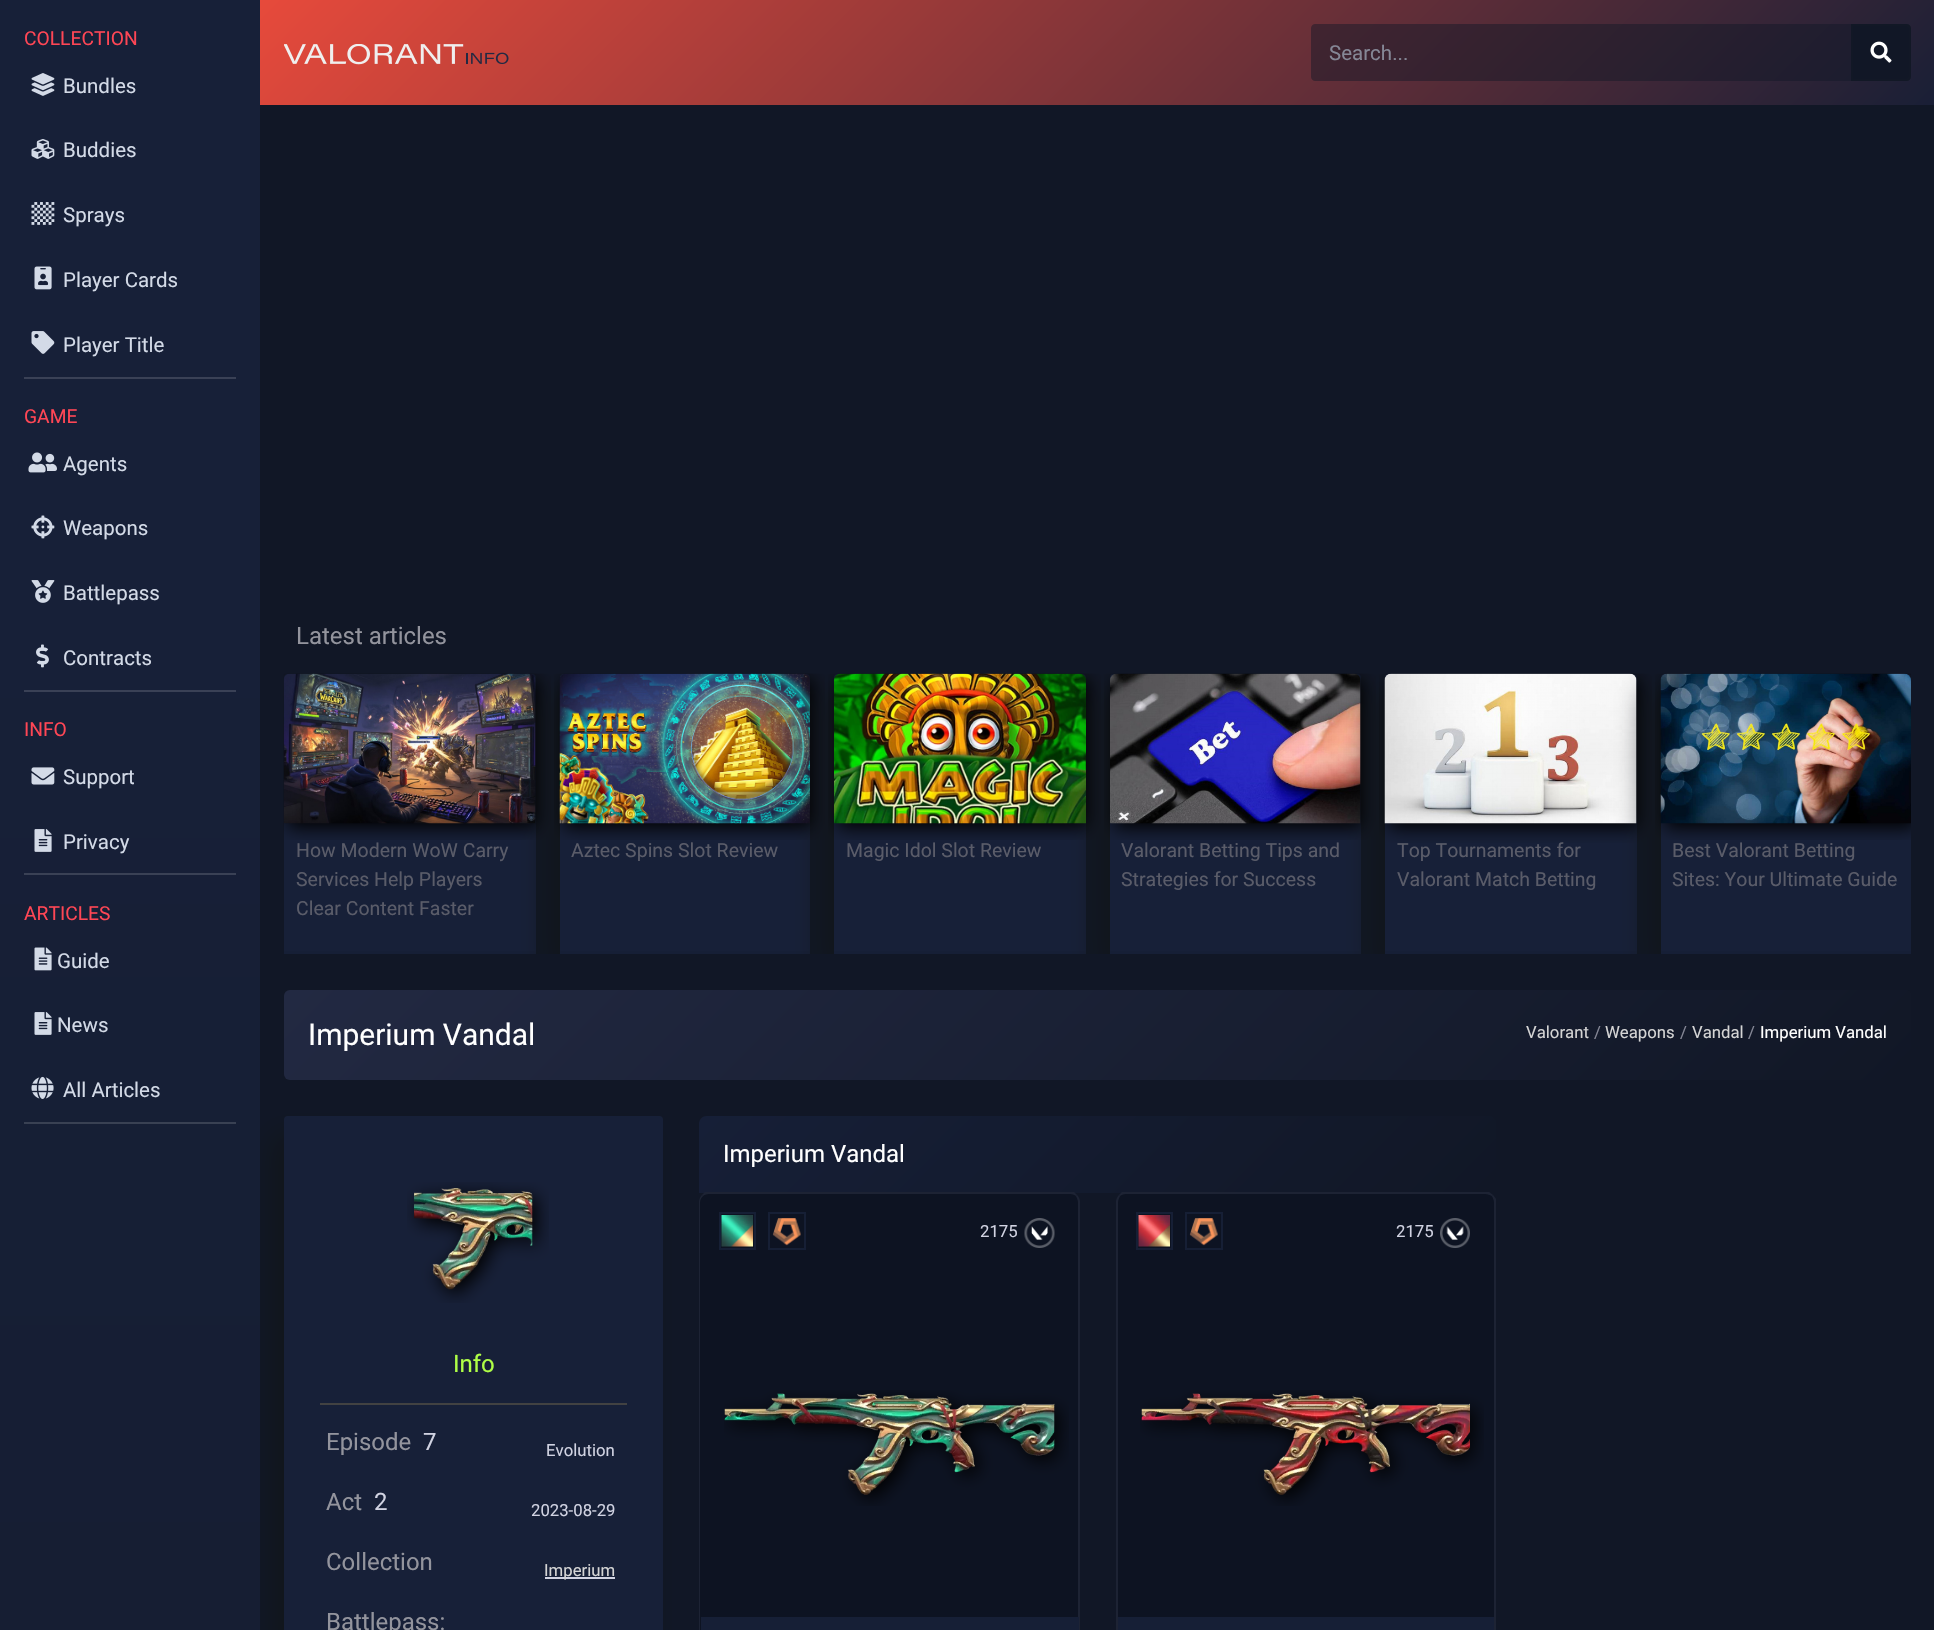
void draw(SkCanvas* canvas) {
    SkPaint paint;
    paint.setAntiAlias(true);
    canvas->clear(0xFF111726);
    {
        const SkColor colors[] = {0xFF222942, 0xFF111726};
        const float stops[] = {0, 1};
        const SkPoint ends[] = {{668, 606}, {1527, 1464}};
        paint.setShader(SkGradientShader::MakeLinear(ends, colors, stops, 2, SkTileMode::kClamp));
        paint.setAlpha(255);
    }
    canvas->drawRoundRect(SkRect::MakeXYWH(284, 990, 1627, 90), 6, 6, paint);
    canvas->save();
    canvas->clipRect(SkRect::MakeXYWH(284, 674, 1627, 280));
    paint.setShader(nullptr);
    paint.setColor(0xFF11151A);
    paint.setMaskFilter(SkMaskFilter::MakeBlur(kNormal_SkBlurStyle, 15));
    canvas->drawRoundRect(SkRect::MakeXYWH(272, 692, 252, 280), 4, 4, paint);
    paint.setMaskFilter(nullptr);
    canvas->restore();
    paint.setMaskFilter(SkMaskFilter::MakeBlur(kNormal_SkBlurStyle, 15));
    canvas->drawRoundRect(SkRect::MakeXYWH(272, 1134, 379, 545), 4, 4, paint);
    paint.setMaskFilter(nullptr);
    {
        const SkColor colors[] = {0xFF172038, 0xFF10151E};
        const float stops[] = {0.1f, 1};
        const SkPoint ends[] = {{130, 0}, {130, 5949}};
        paint.setShader(SkGradientShader::MakeLinear(ends, colors, stops, 2, SkTileMode::kClamp));
        paint.setAlpha(255);
    }
    canvas->drawRect(SkRect::MakeXYWH(0, 0, 260, 1630), paint);
    SkFont font1(fontMgr->matchFamilyStyle("Roboto", SkFontStyle::Normal()), 19.25f);
    font1.setSubpixel(true);
    paint.setShader(nullptr);
    paint.setColor(0xFFFF4655);
    canvas->drawString("COLLECTION", 24, 45, font1, paint);
    canvas->drawImageRect(SkImages::DeferredFromEncodedData(SkData::MakeFromFileName("img1.png")), SkRect::MakeXYWH(31, 73, 24, 23), SkSamplingOptions());
    SkFont font2(fontMgr->matchFamilyStyle("Roboto", SkFontStyle::Normal()), 20.5f);
    font2.setSubpixel(true);
    paint.setColor(0xFFD3DAE7);
    canvas->drawString("Bundles", 63, 93, font2, paint);
    canvas->drawImageRect(SkImages::DeferredFromEncodedData(SkData::MakeFromFileName("img2.png")), SkRect::MakeXYWH(31, 139, 24, 20), SkSamplingOptions());
    canvas->drawString("Buddies", 63, 157, font2, paint);
    canvas->drawImageRect(SkImages::DeferredFromEncodedData(SkData::MakeFromFileName("img3.png")), SkRect::MakeXYWH(31, 202, 24, 23), SkSamplingOptions());
    canvas->drawString("Sprays", 63, 222, font2, paint);
    canvas->drawImageRect(SkImages::DeferredFromEncodedData(SkData::MakeFromFileName("img4.png")), SkRect::MakeXYWH(34, 266, 18, 24), SkSamplingOptions());
    canvas->drawString("Player Cards", 63, 287, font2, paint);
    canvas->drawImageRect(SkImages::DeferredFromEncodedData(SkData::MakeFromFileName("img5.png")), SkRect::MakeXYWH(31, 331, 24, 23), SkSamplingOptions());
    canvas->drawString("Player Title", 63, 352, font2, paint);
    paint.setColor(0xFF3A4156);
    canvas->drawRect(SkRect::MakeXYWH(24, 377, 212, 2), paint);
    paint.setColor(0xFFFF4655);
    canvas->drawString("GAME", 24, 423, font1, paint);
    canvas->drawImageRect(SkImages::DeferredFromEncodedData(SkData::MakeFromFileName("img6.png")), SkRect::MakeXYWH(28, 452, 29, 21), SkSamplingOptions());
    paint.setColor(0xFFD3DAE7);
    canvas->drawString("Agents", 63, 471, font2, paint);
    canvas->drawImageRect(SkImages::DeferredFromEncodedData(SkData::MakeFromFileName("img7.png")), SkRect::MakeXYWH(31, 515, 24, 24), SkSamplingOptions());
    canvas->drawString("Weapons", 63, 535, font2, paint);
    canvas->drawImageRect(SkImages::DeferredFromEncodedData(SkData::MakeFromFileName("img8.png")), SkRect::MakeXYWH(31, 580, 24, 23), SkSamplingOptions());
    canvas->drawString("Battlepass", 63, 600, font2, paint);
    canvas->drawImageRect(SkImages::DeferredFromEncodedData(SkData::MakeFromFileName("img9.png")), SkRect::MakeXYWH(36, 644, 13, 24), SkSamplingOptions());
    canvas->drawString("Contracts", 63, 665, font2, paint);
    paint.setColor(0xFF3A4156);
    canvas->drawRect(SkRect::MakeXYWH(24, 690, 212, 2), paint);
    paint.setColor(0xFFFF4655);
    canvas->drawString("INFO", 24, 736, font1, paint);
    canvas->drawImageRect(SkImages::DeferredFromEncodedData(SkData::MakeFromFileName("img10.png")), SkRect::MakeXYWH(31, 767, 24, 18), SkSamplingOptions());
    paint.setColor(0xFFD3DAE7);
    canvas->drawString("Support", 63, 784, font2, paint);
    canvas->drawImageRect(SkImages::DeferredFromEncodedData(SkData::MakeFromFileName("img11.png")), SkRect::MakeXYWH(34, 829, 18, 23), SkSamplingOptions());
    canvas->drawString("Privacy", 63, 849, font2, paint);
    paint.setColor(0xFF3A4155);
    canvas->drawRect(SkRect::MakeXYWH(24, 873, 212, 2), paint);
    paint.setColor(0xFFFF4655);
    canvas->drawString("ARTICLES", 24, 920, font1, paint);
    canvas->drawImageRect(SkImages::DeferredFromEncodedData(SkData::MakeFromFileName("img12.png")), SkRect::MakeXYWH(34, 947, 18, 24), SkSamplingOptions());
    paint.setColor(0xFFD3DAE7);
    canvas->drawString("Guide", 57, 968, font2, paint);
    canvas->drawImageRect(SkImages::DeferredFromEncodedData(SkData::MakeFromFileName("img13.png")), SkRect::MakeXYWH(34, 1012, 18, 23), SkSamplingOptions());
    canvas->drawString("News", 57, 1032, font2, paint);
    canvas->drawImageRect(SkImages::DeferredFromEncodedData(SkData::MakeFromFileName("img14.png")), SkRect::MakeXYWH(31, 1076, 23, 23), SkSamplingOptions());
    canvas->drawString("All Articles", 63, 1097, font2, paint);
    paint.setColor(0xFF394153);
    canvas->drawRect(SkRect::MakeXYWH(24, 1122, 212, 2), paint);
    {
        const SkColor colors[] = {0xFFE74A3B, 0xFF191F36};
        const float stops[] = {0, 1};
        const SkPoint ends[] = {{652, -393}, {1542, 498}};
        paint.setShader(SkGradientShader::MakeLinear(ends, colors, stops, 2, SkTileMode::kClamp));
        paint.setAlpha(255);
    }
    canvas->drawRect(SkRect::MakeXYWH(260, 0, 1674, 105), paint);
    canvas->drawImageRect(SkImages::DeferredFromEncodedData(SkData::MakeFromFileName("img15.png")), SkRect::MakeXYWH(284, 44, 225, 21), SkSamplingOptions());
    paint.setShader(nullptr);
    paint.setColor(0x75101626);
    canvas->drawPath(SkPathBuilder().moveTo(1315, 24).lineTo(1853, 24).lineTo(1853, 81).lineTo(1315, 81).cubicTo(1313, 81, 1311, 79, 1311, 77).lineTo(1311, 28).cubicTo(1311, 26, 1313, 24, 1315, 24).close().detach(), paint);
    paint.setColor(0xFF858796);
    canvas->drawString("Search...", 1329, 60, font2, paint);
    paint.setColor(0xFF111726);
    canvas->drawPath(SkPathBuilder().moveTo(1852, 25).lineTo(1907, 25).cubicTo(1908.5f, 25, 1910, 26.5f, 1910, 28).lineTo(1910, 77).cubicTo(1910, 78.5f, 1908.5f, 80, 1907, 80).lineTo(1852, 80).close().detach(), paint);
    paint.setStyle(SkPaint::kStroke_Style);
    paint.setStrokeWidth(2);
    paint.setColor(0xFF121826);
    canvas->drawPath(SkPathBuilder().moveTo(1852, 25).lineTo(1907, 25).cubicTo(1908.5f, 25, 1910, 26.5f, 1910, 28).lineTo(1910, 77).cubicTo(1910, 78.5f, 1908.5f, 80, 1907, 80).lineTo(1852, 80).close().detach(), paint);
    canvas->drawImageRect(SkImages::DeferredFromEncodedData(SkData::MakeFromFileName("img16.png")), SkRect::MakeXYWH(1870, 41, 22, 22), SkSamplingOptions());
    SkFont font3(fontMgr->matchFamilyStyle("Roboto", SkFontStyle::Normal()), 24);
    font3.setSubpixel(true);
    paint.setStyle(SkPaint::kFill_Style);
    paint.setColor(0xFF93949D);
    canvas->drawString("Latest articles", 296, 644, font3, paint);
    paint.setColor(0xFF172038);
    canvas->drawRoundRect(SkRect::MakeXYWH(284, 674, 252, 280), 4, 4, paint);
    canvas->drawImageRect(SkImages::DeferredFromEncodedData(SkData::MakeFromFileName("img17.png")), SkRect::MakeXYWH(283, 673, 268, 167), SkSamplingOptions());
    paint.setColor(0xFF161F36);
    canvas->drawRect(SkRect::MakeXYWH(284, 951, 252, 3), paint);
    SkFont font4(fontMgr->matchFamilyStyle("Roboto", SkFontStyle::Normal()), 19.5f);
    font4.setSubpixel(true);
    paint.setColor(0xFF5A5C69);
    canvas->drawString("How Modern WoW Carry", 296, 857, font4, paint);
    canvas->drawString("Services Help Players", 296, 886, font4, paint);
    canvas->drawString("Clear Content Faster", 296, 915, font4, paint);
    canvas->save();
    canvas->clipRect(SkRect::MakeXYWH(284, 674, 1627, 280));
    paint.setColor(0xFF11151A);
    paint.setMaskFilter(SkMaskFilter::MakeBlur(kNormal_SkBlurStyle, 15));
    canvas->drawRoundRect(SkRect::MakeXYWH(548, 692, 250, 280), 4, 4, paint);
    paint.setMaskFilter(nullptr);
    canvas->restore();
    paint.setColor(0xFF172038);
    canvas->drawRoundRect(SkRect::MakeXYWH(560, 674, 250, 280), 4, 4, paint);
    canvas->drawImageRect(SkImages::DeferredFromEncodedData(SkData::MakeFromFileName("img18.png")), SkRect::MakeXYWH(554, 673, 271, 167), SkSamplingOptions());
    paint.setColor(0xFF161F36);
    canvas->drawRect(SkRect::MakeXYWH(560, 951, 250, 3), paint);
    paint.setColor(0xFF5A5C69);
    canvas->drawString("Aztec Spins Slot Review", 571, 857, font4, paint);
    canvas->save();
    canvas->clipRect(SkRect::MakeXYWH(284, 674, 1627, 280));
    paint.setColor(0xFF11151A);
    paint.setMaskFilter(SkMaskFilter::MakeBlur(kNormal_SkBlurStyle, 15));
    canvas->drawRoundRect(SkRect::MakeXYWH(822, 692, 252, 280), 4, 4, paint);
    paint.setMaskFilter(nullptr);
    canvas->restore();
    paint.setColor(0xFF172038);
    canvas->drawRoundRect(SkRect::MakeXYWH(834, 674, 252, 280), 4, 4, paint);
    canvas->drawImageRect(SkImages::DeferredFromEncodedData(SkData::MakeFromFileName("img19.png")), SkRect::MakeXYWH(828, 673, 273, 167), SkSamplingOptions());
    paint.setColor(0xFF161F36);
    canvas->drawRect(SkRect::MakeXYWH(834, 951, 252, 3), paint);
    paint.setColor(0xFF5A5C69);
    canvas->drawString("Magic Idol Slot Review", 846, 857, font4, paint);
    canvas->save();
    canvas->clipRect(SkRect::MakeXYWH(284, 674, 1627, 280));
    paint.setColor(0xFF11151A);
    paint.setMaskFilter(SkMaskFilter::MakeBlur(kNormal_SkBlurStyle, 15));
    canvas->drawRoundRect(SkRect::MakeXYWH(1098, 692, 251, 280), 4, 4, paint);
    paint.setMaskFilter(nullptr);
    canvas->restore();
    paint.setColor(0xFF172038);
    canvas->drawRoundRect(SkRect::MakeXYWH(1110, 674, 251, 280), 4, 4, paint);
    canvas->drawImageRect(SkImages::DeferredFromEncodedData(SkData::MakeFromFileName("img20.png")), SkRect::MakeXYWH(1104, 673, 272, 167), SkSamplingOptions());
    paint.setColor(0xFF161F36);
    canvas->drawRect(SkRect::MakeXYWH(1110, 951, 251, 3), paint);
    paint.setColor(0xFF5A5C69);
    canvas->drawString("Valorant Betting Tips and", 1121, 857, font4, paint);
    canvas->drawString("Strategies for Success", 1121, 886, font4, paint);
    canvas->save();
    canvas->clipRect(SkRect::MakeXYWH(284, 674, 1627, 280));
    paint.setColor(0xFF11151A);
    paint.setMaskFilter(SkMaskFilter::MakeBlur(kNormal_SkBlurStyle, 15));
    canvas->drawRoundRect(SkRect::MakeXYWH(1373, 692, 252, 280), 4, 4, paint);
    paint.setMaskFilter(nullptr);
    canvas->restore();
    paint.setColor(0xFF172038);
    canvas->drawRoundRect(SkRect::MakeXYWH(1385, 674, 252, 280), 4, 4, paint);
    paint.setColor(0xFF5A5C69);
    canvas->drawString("Top Tournaments for", 1397, 857, font4, paint);
    canvas->drawImageRect(SkImages::DeferredFromEncodedData(SkData::MakeFromFileName("img21.png")), SkRect::MakeXYWH(1379, 673, 273, 170), SkSamplingOptions());
    paint.setColor(0xFF161F36);
    canvas->drawRect(SkRect::MakeXYWH(1385, 951, 252, 3), paint);
    paint.setColor(0xFF5A5C69);
    canvas->drawString("Valorant Match Betting", 1397, 886, font4, paint);
    canvas->save();
    canvas->clipRect(SkRect::MakeXYWH(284, 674, 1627, 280));
    paint.setColor(0xFF11151A);
    paint.setMaskFilter(SkMaskFilter::MakeBlur(kNormal_SkBlurStyle, 15));
    canvas->drawRoundRect(SkRect::MakeXYWH(1649, 692, 250, 280), 4, 4, paint);
    paint.setMaskFilter(nullptr);
    canvas->restore();
    paint.setColor(0xFF172038);
    canvas->drawRoundRect(SkRect::MakeXYWH(1661, 674, 250, 280), 4, 4, paint);
    canvas->drawImageRect(SkImages::DeferredFromEncodedData(SkData::MakeFromFileName("img22.png")), SkRect::MakeXYWH(1655, 673, 256, 167), SkSamplingOptions());
    paint.setColor(0xFF161F36);
    canvas->drawRect(SkRect::MakeXYWH(1661, 951, 250, 3), paint);
    paint.setColor(0xFF5A5C69);
    canvas->drawString("Best Valorant Betting", 1672, 857, font4, paint);
    canvas->drawString("Sites: Your Ultimate Guide", 1672, 886, font4, paint);
    SkFont font5(fontMgr->matchFamilyStyle("Roboto", SkFontStyle::Normal()), 30);
    font5.setSubpixel(true);
    paint.setColor(0xFFFFFFFF);
    canvas->drawString("Imperium Vandal", 308, 1045, font5, paint);
    SkFont font6(fontMgr->matchFamilyStyle("Roboto", SkFontStyle::Normal()), 16.75f);
    font6.setSubpixel(true);
    paint.setColor(0xFFD5D5D5);
    canvas->drawString("Valorant", 1526, 1038, font6, paint);
    paint.setColor(0xFF858796);
    canvas->drawString("/", 1594, 1038, font6, paint);
    paint.setColor(0xFFD5D5D5);
    canvas->drawString("Weapons", 1605, 1038, font6, paint);
    paint.setColor(0xFF858796);
    canvas->drawString("/", 1680, 1038, font6, paint);
    paint.setColor(0xFFD5D5D5);
    canvas->drawString("Vandal", 1692, 1038, font6, paint);
    paint.setColor(0xFF858796);
    canvas->drawString("/", 1748, 1038, font6, paint);
    paint.setColor(0xFFFFFFFF);
    canvas->drawString("Imperium Vandal", 1760, 1038, font6, paint);
    {
        const SkColor colors[] = {0xFF161F37, 0xFF111726};
        const float stops[] = {0, 1};
        const SkPoint ends[] = {{879, 936}, {1316, 1373}};
        paint.setShader(SkGradientShader::MakeLinear(ends, colors, stops, 2, SkTileMode::kClamp));
        paint.setAlpha(255);
    }
    canvas->drawPath(SkPathBuilder().moveTo(707, 1116).lineTo(1488, 1116).cubicTo(1492.5f, 1116, 1496, 1119.5f, 1496, 1124).lineTo(1496, 1193).lineTo(699, 1193).lineTo(699, 1124).cubicTo(699, 1119.5f, 702.5f, 1116, 707, 1116).close().detach(), paint);
    paint.setShader(nullptr);
    paint.setColor(0xFFFFFFFF);
    canvas->drawString("Imperium Vandal", 723, 1162, font3, paint);
    paint.setColor(0xFF0D1322);
    canvas->drawPath(SkPathBuilder().moveTo(708, 1194).lineTo(1071, 1194).cubicTo(1075, 1194, 1078, 1197, 1078, 1202).lineTo(1078, 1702).cubicTo(1078, 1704, 1075, 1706, 1071, 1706).lineTo(708, 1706).cubicTo(704, 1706, 700, 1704, 700, 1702).lineTo(700, 1202).cubicTo(700, 1197, 704, 1194, 708, 1194).close().detach(), paint);
    paint.setColor(0xFF1D2334);
    canvas->drawPath(SkPathBuilder().moveTo(708, 1194).cubicTo(706, 1194, 704, 1195, 703, 1196).lineTo(702, 1195).cubicTo(703, 1194, 704, 1193, 705, 1192).lineTo(1074, 1192).cubicTo(1075, 1193, 1076, 1194, 1077, 1195).lineTo(1076, 1196).cubicTo(1075, 1195, 1073, 1194, 1071, 1194).close().detach(), paint);
    canvas->drawPath(SkPathBuilder().moveTo(1080, 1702).lineTo(1080, 1202).cubicTo(1080, 1200, 1079, 1197, 1077, 1195).lineTo(1076, 1196).cubicTo(1077, 1198, 1078, 1200, 1078, 1202).lineTo(1078, 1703).lineTo(1079, 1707).close().detach(), paint);
    canvas->drawPath(SkPathBuilder().moveTo(699, 1202).lineTo(699, 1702).lineTo(700, 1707).lineTo(701, 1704).lineTo(700, 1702).lineTo(700, 1202).cubicTo(700, 1200, 701, 1198, 703, 1196).lineTo(702, 1195).cubicTo(700, 1197, 699, 1200, 699, 1202).close().detach(), paint);
    paint.setStyle(SkPaint::kStroke_Style);
    paint.setColor(0xFF161F35);
    canvas->drawRect(SkRect::MakeXYWH(720, 1213, 35, 36), paint);
    canvas->drawImageRect(SkImages::DeferredFromEncodedData(SkData::MakeFromFileName("img23.png")), SkRect::MakeXYWH(721, 1215, 32, 32), SkSamplingOptions());
    canvas->drawRect(SkRect::MakeXYWH(769, 1213, 36, 36), paint);
    canvas->drawImageRect(SkImages::DeferredFromEncodedData(SkData::MakeFromFileName("img24.png")), SkRect::MakeXYWH(772, 1218, 29, 28), SkSamplingOptions());
    paint.setStyle(SkPaint::kFill_Style);
    paint.setColor(0xFFD1D3E2);
    canvas->drawString("2175", 980, 1237, font6, paint);
    canvas->drawImageRect(SkImages::DeferredFromEncodedData(SkData::MakeFromFileName("img25.png")), SkRect::MakeXYWH(1024, 1218, 31, 30), SkSamplingOptions());
    canvas->drawImageRect(SkImages::DeferredFromEncodedData(SkData::MakeFromFileName("img26.png")), SkRect::MakeXYWH(724, 1390, 345, 116), SkSamplingOptions());
    paint.setColor(0xFF161F36);
    canvas->drawRect(SkRect::MakeXYWH(701, 1617, 378, 13), paint);
    paint.setColor(0xFF0D1322);
    canvas->drawPath(SkPathBuilder().moveTo(1125, 1194).lineTo(1486, 1194).cubicTo(1491, 1194, 1494, 1197, 1494, 1202).lineTo(1494, 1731).cubicTo(1494, 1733, 1491, 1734, 1486, 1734).lineTo(1125, 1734).cubicTo(1121, 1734, 1118, 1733, 1118, 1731).lineTo(1118, 1202).cubicTo(1118, 1197, 1121, 1194, 1125, 1194).close().detach(), paint);
    paint.setColor(0xFF1D2334);
    canvas->drawPath(SkPathBuilder().moveTo(1125, 1194).cubicTo(1123, 1194, 1121, 1195, 1120, 1196).lineTo(1119, 1195).lineTo(1122, 1192).lineTo(1489, 1192).lineTo(1493, 1195).lineTo(1492, 1196).cubicTo(1490, 1195, 1488, 1194, 1486, 1194).close().detach(), paint);
    canvas->drawPath(SkPathBuilder().moveTo(1496, 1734).lineTo(1494, 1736).lineTo(1494, 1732).lineTo(1494, 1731).lineTo(1494, 1202).cubicTo(1494, 1200, 1493, 1198, 1492, 1196).lineTo(1493, 1195).cubicTo(1494, 1196, 1495, 1198, 1496, 1199).close().detach(), paint);
    canvas->drawPath(SkPathBuilder().moveTo(1116, 1202).lineTo(1116, 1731).lineTo(1117, 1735).lineTo(1118, 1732).lineTo(1118, 1202).cubicTo(1118, 1200, 1119, 1198, 1120, 1196).lineTo(1119, 1195).cubicTo(1117, 1197, 1116, 1200, 1116, 1202).close().detach(), paint);
    paint.setStyle(SkPaint::kStroke_Style);
    paint.setColor(0xFF161F35);
    canvas->drawRect(SkRect::MakeXYWH(1137, 1213, 35, 36), paint);
    canvas->drawImageRect(SkImages::DeferredFromEncodedData(SkData::MakeFromFileName("img27.png")), SkRect::MakeXYWH(1138, 1215, 32, 32), SkSamplingOptions());
    canvas->drawRect(SkRect::MakeXYWH(1186, 1213, 36, 36), paint);
    canvas->drawImageRect(SkImages::DeferredFromEncodedData(SkData::MakeFromFileName("img24.png")), SkRect::MakeXYWH(1189, 1218, 29, 28), SkSamplingOptions());
    paint.setStyle(SkPaint::kFill_Style);
    paint.setColor(0xFFD1D3E2);
    canvas->drawString("2175", 1396, 1237, font6, paint);
    canvas->drawImageRect(SkImages::DeferredFromEncodedData(SkData::MakeFromFileName("img28.png")), SkRect::MakeXYWH(1440, 1218, 30, 30), SkSamplingOptions());
    canvas->drawImageRect(SkImages::DeferredFromEncodedData(SkData::MakeFromFileName("img29.png")), SkRect::MakeXYWH(1140, 1390, 344, 116), SkSamplingOptions());
    paint.setColor(0xFF161F36);
    canvas->drawRect(SkRect::MakeXYWH(1118, 1617, 376, 13), paint);
    paint.setColor(0xFF172038);
    canvas->drawRoundRect(SkRect::MakeXYWH(284, 1116, 379, 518), 4, 4, paint);
    canvas->drawImageRect(SkImages::DeferredFromEncodedData(SkData::MakeFromFileName("img30.png")), SkRect::MakeXYWH(407, 1182, 142, 121), SkSamplingOptions());
    paint.setColor(0xFFAFFF46);
    canvas->drawString("Info", 453, 1372, font3, paint);
    paint.setColor(0xFF424242);
    canvas->drawRect(SkRect::MakeXYWH(320, 1403, 307, 2), paint);
    paint.setColor(0xFF93949D);
    canvas->drawString("Episode", 326, 1450, font3, paint);
    paint.setColor(0xFFD1D3E2);
    canvas->drawString("7", 423, 1450, font3, paint);
    canvas->drawString("Evolution", 546, 1456, font6, paint);
    paint.setColor(0xFF93949D);
    canvas->drawString("Act", 326, 1510, font3, paint);
    paint.setColor(0xFFD1D3E2);
    canvas->drawString("2", 374, 1510, font3, paint);
    canvas->drawString("2023-08-29", 531, 1516, font6, paint);
    paint.setColor(0xFF93949D);
    canvas->drawString("Collection", 326, 1570, font3, paint);
    paint.setColor(0xFFD1D3E2);
    canvas->drawRect(SkRect::MakeXYWH(545, 1577, 70, 2), paint);
    paint.setColor(0xFFD5D5D5);
    canvas->drawString("Imperium", 544, 1576, font6, paint);
    paint.setColor(0xFF93949D);
    canvas->drawString("Battlepass:", 326, 1630, font3, paint);
}
